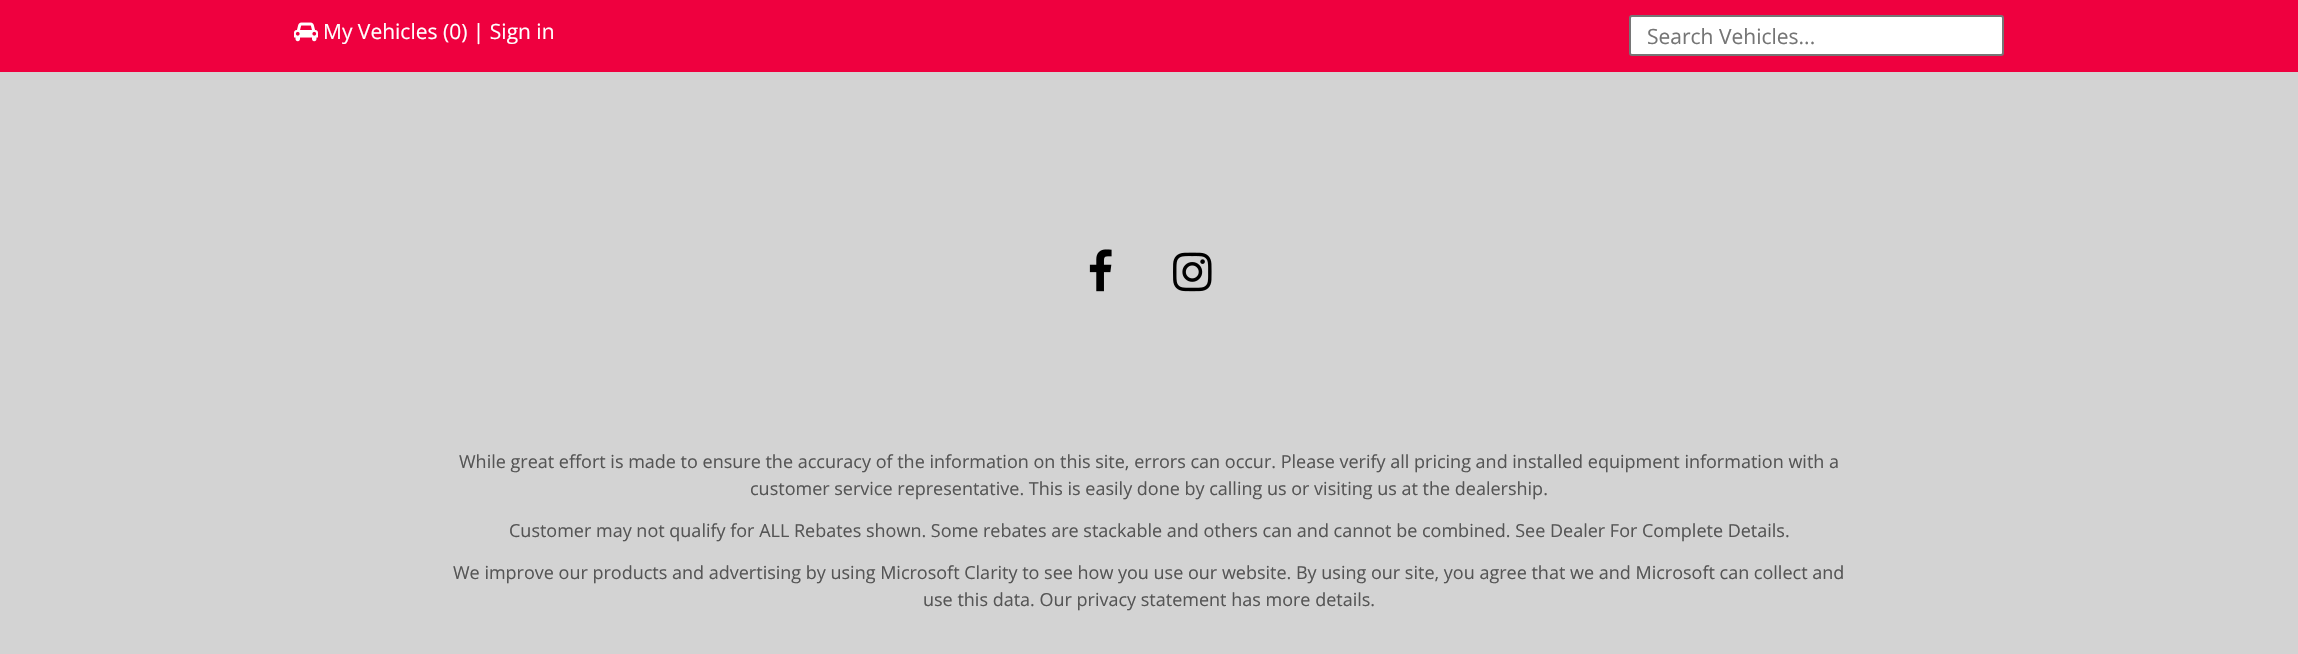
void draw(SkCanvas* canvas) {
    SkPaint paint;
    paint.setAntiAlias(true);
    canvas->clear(0xFFD3D3D3);
    paint.setColor(0xFFEF003F);
    canvas->drawRect(SkRect::MakeXYWH(0, 0, 2298, 72), paint);
    canvas->drawImageRect(SkImages::DeferredFromEncodedData(SkData::MakeFromFileName("img1.png")), SkRect::MakeXYWH(294, 22, 24, 20), SkSamplingOptions());
    SkFont font1(fontMgr->matchFamilyStyle("Open Sans", SkFontStyle::Normal()), 21);
    font1.setSubpixel(true);
    paint.setColor(0xFFFFFFFF);
    canvas->drawString("My Vehicles (0) | Sign in", 323, 39, font1, paint);
    canvas->drawRoundRect(SkRect::MakeXYWH(1630, 16, 373, 39), 2, 2, paint);
    paint.setStyle(SkPaint::kStroke_Style);
    paint.setStrokeWidth(2);
    paint.setColor(0xFF767676);
    canvas->drawRoundRect(SkRect::MakeXYWH(1630, 16, 373, 39), 2, 2, paint);
    paint.setStyle(SkPaint::kFill_Style);
    paint.setColor(0xFF757575);
    canvas->drawString("Search Vehicles...", 1647, 44, font1, paint);
    canvas->drawImageRect(SkImages::DeferredFromEncodedData(SkData::MakeFromFileName("img2.png")), SkRect::MakeXYWH(1089, 249, 23, 43), SkSamplingOptions());
    canvas->drawImageRect(SkImages::DeferredFromEncodedData(SkData::MakeFromFileName("img3.png")), SkRect::MakeXYWH(1173, 252, 39, 40), SkSamplingOptions());
    SkFont font2(fontMgr->matchFamilyStyle("Open Sans", SkFontStyle::Normal()), 18);
    font2.setSubpixel(true);
    paint.setColor(0xFF555555);
    canvas->drawString("While great effort is made to ensure the accuracy of the information on this site, errors can occur. Please verify all pricing and installed equipment information with a", 459, 468, font2, paint);
    canvas->drawString("customer service representative. This is easily done by calling us or visiting us at the dealership.", 750, 495, font2, paint);
    canvas->drawString("Customer may not qualify for ALL Rebates shown. Some rebates are stackable and others can and cannot be combined. See Dealer For Complete Details.", 509, 537, font2, paint);
    canvas->drawString("We improve our products and advertising by using Microsoft Clarity to see how you use our website. By using our site, you agree that we and Microsoft can collect and", 453, 579, font2, paint);
    canvas->drawString("use this data. Our privacy statement has more details.", 923, 606, font2, paint);
}
